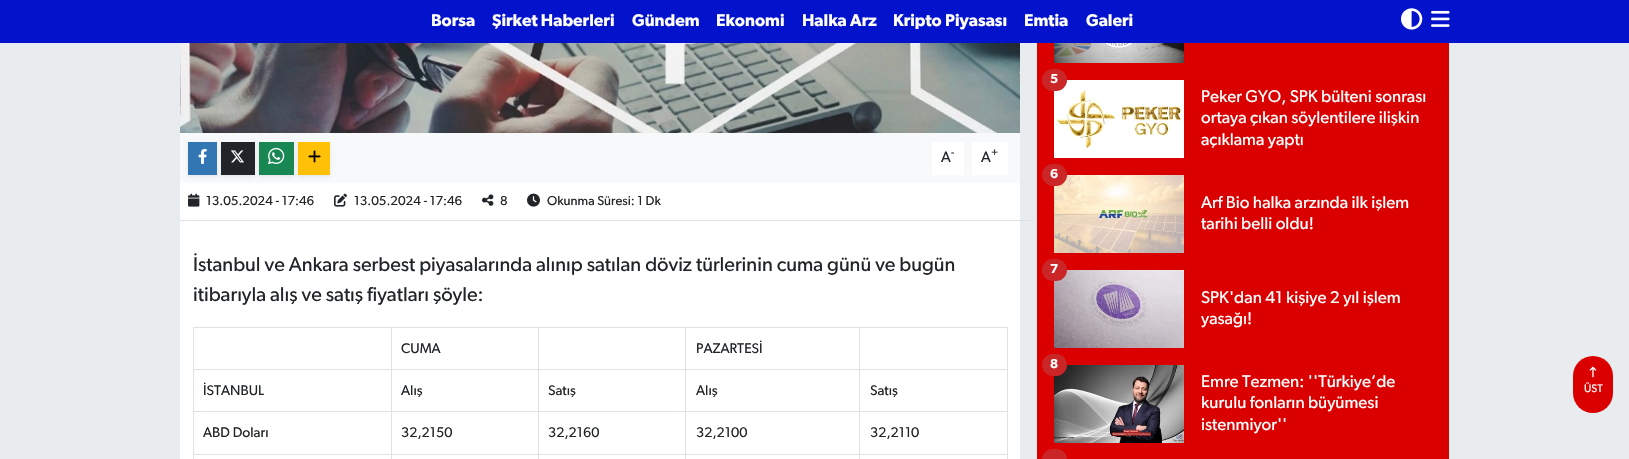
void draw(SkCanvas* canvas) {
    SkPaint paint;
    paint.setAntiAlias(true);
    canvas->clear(0xFFE9ECEF);
    paint.setColor(0xFF0312CB);
    canvas->drawRect(SkRect::MakeXYWH(0, 0, 1629, 43), paint);
    SkFont font1(fontMgr->matchFamilyStyle("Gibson", SkFontStyle(600, SkFontStyle::kNormal_Width, SkFontStyle::kUpright_Slant)), 17);
    font1.setSubpixel(true);
    paint.setColor(0xFFFFFFFF);
    canvas->drawString("Borsa", 431, 26, font1, paint);
    canvas->drawString("Şirket Haberleri", 492, 26, font1, paint);
    canvas->drawString("Gündem", 632, 26, font1, paint);
    canvas->drawString("Ekonomi", 716, 26, font1, paint);
    canvas->drawString("Halka Arz", 802, 26, font1, paint);
    canvas->drawString("Kripto Piyasası", 893, 26, font1, paint);
    canvas->drawString("Emtia", 1024, 26, font1, paint);
    canvas->drawString("Galeri", 1086, 26, font1, paint);
    canvas->drawImageRect(SkImages::DeferredFromEncodedData(SkData::MakeFromFileName("img1.png")), SkRect::MakeXYWH(1401, 8, 22, 22), SkSamplingOptions());
    canvas->drawImageRect(SkImages::DeferredFromEncodedData(SkData::MakeFromFileName("img2.png")), SkRect::MakeXYWH(1431, 10, 19, 17), SkSamplingOptions());
    canvas->drawRect(SkRect::MakeXYWH(180, 183, 840, 276), paint);
    canvas->drawImageRect(SkImages::DeferredFromEncodedData(SkData::MakeFromFileName("img3.png")), SkRect::MakeXYWH(180, 43, 840, 90), SkSamplingOptions());
    paint.setColor(0xFFF8F9FA);
    canvas->drawRect(SkRect::MakeXYWH(180, 133, 840, 50), paint);
    paint.setColor(0x12000000);
    paint.setMaskFilter(SkMaskFilter::MakeBlur(kNormal_SkBlurStyle, 2));
    canvas->drawRect(SkRect::MakeXYWH(188, 144, 29, 33), paint);
    paint.setMaskFilter(nullptr);
    paint.setColor(0xFF3276B3);
    canvas->drawRect(SkRect::MakeXYWH(188, 142, 29, 33), paint);
    canvas->drawImageRect(SkImages::DeferredFromEncodedData(SkData::MakeFromFileName("img4.png")), SkRect::MakeXYWH(198, 149, 9, 15), SkSamplingOptions());
    paint.setColor(0x12000000);
    paint.setMaskFilter(SkMaskFilter::MakeBlur(kNormal_SkBlurStyle, 2));
    canvas->drawRect(SkRect::MakeXYWH(221, 144, 34, 33), paint);
    paint.setMaskFilter(nullptr);
    paint.setColor(0xFF212529);
    canvas->drawRect(SkRect::MakeXYWH(221, 142, 34, 33), paint);
    canvas->drawImageRect(SkImages::DeferredFromEncodedData(SkData::MakeFromFileName("img5.png")), SkRect::MakeXYWH(230, 150, 14, 13), SkSamplingOptions());
    paint.setColor(0x12000000);
    paint.setMaskFilter(SkMaskFilter::MakeBlur(kNormal_SkBlurStyle, 2));
    canvas->drawRect(SkRect::MakeXYWH(259, 144, 35, 33), paint);
    paint.setMaskFilter(nullptr);
    paint.setColor(0xFF198754);
    canvas->drawRect(SkRect::MakeXYWH(259, 142, 35, 33), paint);
    canvas->drawImageRect(SkImages::DeferredFromEncodedData(SkData::MakeFromFileName("img6.png")), SkRect::MakeXYWH(268, 147, 17, 18), SkSamplingOptions());
    paint.setColor(0x12000000);
    paint.setMaskFilter(SkMaskFilter::MakeBlur(kNormal_SkBlurStyle, 2));
    canvas->drawRect(SkRect::MakeXYWH(298, 144, 32, 33), paint);
    paint.setMaskFilter(nullptr);
    paint.setColor(0xFFFFC107);
    canvas->drawRect(SkRect::MakeXYWH(298, 142, 32, 33), paint);
    canvas->drawImageRect(SkImages::DeferredFromEncodedData(SkData::MakeFromFileName("img7.png")), SkRect::MakeXYWH(308, 150, 13, 13), SkSamplingOptions());
    paint.setColor(0xFFFFFFFF);
    canvas->drawRect(SkRect::MakeXYWH(932, 142, 32, 33), paint);
    SkFont font2(fontMgr->matchFamilyStyle("Gibson", SkFontStyle::Normal()), 15);
    font2.setSubpixel(true);
    paint.setColor(0xFF212529);
    canvas->drawString("A", 941, 162, font2, paint);
    SkFont font3(fontMgr->matchFamilyStyle("Gibson", SkFontStyle::Normal()), 11);
    font3.setSubpixel(true);
    canvas->drawString("-", 951, 156, font3, paint);
    paint.setColor(0xFFFFFFFF);
    canvas->drawRect(SkRect::MakeXYWH(972, 142, 36, 33), paint);
    paint.setColor(0xFF212529);
    canvas->drawString("A", 981, 162, font2, paint);
    canvas->drawString("+", 991, 156, font3, paint);
    paint.setColor(0xFFDEE2E6);
    canvas->drawRect(SkRect::MakeXYWH(180, 220, 853, 1), paint);
    canvas->drawImageRect(SkImages::DeferredFromEncodedData(SkData::MakeFromFileName("img8.png")), SkRect::MakeXYWH(188, 193, 12, 14), SkSamplingOptions());
    SkFont font4(fontMgr->matchFamilyStyle("Gibson", SkFontStyle::Normal()), 13);
    font4.setSubpixel(true);
    paint.setColor(0xFF212529);
    canvas->drawString("13.05.2024 - 17:46", 206, 205, font4, paint);
    canvas->drawImageRect(SkImages::DeferredFromEncodedData(SkData::MakeFromFileName("img9.png")), SkRect::MakeXYWH(334, 193, 13, 14), SkSamplingOptions());
    canvas->drawString("13.05.2024 - 17:46", 354, 205, font4, paint);
    canvas->drawImageRect(SkImages::DeferredFromEncodedData(SkData::MakeFromFileName("img10.png")), SkRect::MakeXYWH(482, 194, 12, 12), SkSamplingOptions());
    canvas->drawString("8", 500, 205, font4, paint);
    canvas->drawImageRect(SkImages::DeferredFromEncodedData(SkData::MakeFromFileName("img11.png")), SkRect::MakeXYWH(527, 193, 13, 14), SkSamplingOptions());
    canvas->drawString("Okunma Süresi: 1 Dk", 547, 205, font4, paint);
    SkFont font5(fontMgr->matchFamilyStyle("Gibson", SkFontStyle::Normal()), 20);
    font5.setSubpixel(true);
    canvas->drawString("İstanbul ve Ankara serbest piyasalarında alınıp satılan döviz türlerinin cuma günü ve bugün", 193, 271, font5, paint);
    canvas->drawString("itibarıyla alış ve satış fiyatları şöyle:", 193, 301, font5, paint);
    paint.setColor(0xFFDEE2E6);
    canvas->drawRect(SkRect::MakeXYWH(193, 327, 815, 1), paint);
    canvas->drawRect(SkRect::MakeXYWH(1007, 327, 1, 132), paint);
    canvas->drawRect(SkRect::MakeXYWH(193, 327, 1, 132), paint);
    canvas->drawRect(SkRect::MakeXYWH(859, 369, 149, 1), paint);
    canvas->drawRect(SkRect::MakeXYWH(859, 411, 149, 1), paint);
    canvas->drawRect(SkRect::MakeXYWH(859, 454, 149, 1), paint);
    canvas->drawRect(SkRect::MakeXYWH(859, 454, 1, 5), paint);
    canvas->drawRect(SkRect::MakeXYWH(685, 454, 175, 1), paint);
    canvas->drawRect(SkRect::MakeXYWH(859, 411, 1, 44), paint);
    canvas->drawRect(SkRect::MakeXYWH(685, 411, 175, 1), paint);
    canvas->drawRect(SkRect::MakeXYWH(859, 369, 1, 43), paint);
    canvas->drawRect(SkRect::MakeXYWH(685, 369, 175, 1), paint);
    canvas->drawRect(SkRect::MakeXYWH(685, 454, 1, 5), paint);
    canvas->drawRect(SkRect::MakeXYWH(538, 454, 148, 1), paint);
    canvas->drawRect(SkRect::MakeXYWH(685, 411, 1, 44), paint);
    canvas->drawRect(SkRect::MakeXYWH(538, 411, 148, 1), paint);
    canvas->drawRect(SkRect::MakeXYWH(685, 369, 1, 43), paint);
    canvas->drawRect(SkRect::MakeXYWH(538, 369, 148, 1), paint);
    canvas->drawRect(SkRect::MakeXYWH(538, 454, 1, 5), paint);
    canvas->drawRect(SkRect::MakeXYWH(391, 454, 148, 1), paint);
    canvas->drawRect(SkRect::MakeXYWH(538, 411, 1, 44), paint);
    canvas->drawRect(SkRect::MakeXYWH(391, 411, 148, 1), paint);
    canvas->drawRect(SkRect::MakeXYWH(538, 369, 1, 43), paint);
    canvas->drawRect(SkRect::MakeXYWH(391, 369, 148, 1), paint);
    canvas->drawRect(SkRect::MakeXYWH(391, 454, 1, 5), paint);
    canvas->drawRect(SkRect::MakeXYWH(193, 454, 199, 1), paint);
    canvas->drawRect(SkRect::MakeXYWH(391, 411, 1, 44), paint);
    canvas->drawRect(SkRect::MakeXYWH(193, 411, 199, 1), paint);
    canvas->drawRect(SkRect::MakeXYWH(391, 369, 1, 43), paint);
    canvas->drawRect(SkRect::MakeXYWH(193, 369, 199, 1), paint);
    canvas->drawRect(SkRect::MakeXYWH(391, 327, 1, 43), paint);
    SkFont font6(fontMgr->matchFamilyStyle("Gibson", SkFontStyle::Normal()), 14);
    font6.setSubpixel(true);
    paint.setColor(0xFF212529);
    canvas->drawString("CUMA", 401, 353, font6, paint);
    paint.setColor(0xFFDEE2E6);
    canvas->drawRect(SkRect::MakeXYWH(538, 327, 1, 43), paint);
    canvas->drawRect(SkRect::MakeXYWH(685, 327, 1, 43), paint);
    paint.setColor(0xFF212529);
    canvas->drawString("PAZARTESİ", 696, 353, font6, paint);
    paint.setColor(0xFFDEE2E6);
    canvas->drawRect(SkRect::MakeXYWH(859, 327, 1, 43), paint);
    paint.setColor(0xFF212529);
    canvas->drawString("İSTANBUL", 203, 395, font6, paint);
    canvas->drawString("Alış", 401, 395, font6, paint);
    canvas->drawString("Satış", 548, 395, font6, paint);
    canvas->drawString("Alış", 696, 395, font6, paint);
    canvas->drawString("Satış", 870, 395, font6, paint);
    canvas->drawString("ABD Doları", 203, 437, font6, paint);
    canvas->drawString("32,2150", 401, 437, font6, paint);
    canvas->drawString("32,2160", 548, 437, font6, paint);
    canvas->drawString("32,2100", 696, 437, font6, paint);
    canvas->drawString("32,2110", 870, 437, font6, paint);
    paint.setColor(0xFFDB0000);
    canvas->drawRect(SkRect::MakeXYWH(1037, 43, 412, 416), paint);
    canvas->drawImageRect(SkImages::DeferredFromEncodedData(SkData::MakeFromFileName("img12.png")), SkRect::MakeXYWH(1054, 43, 130, 20), SkSamplingOptions());
    canvas->drawImageRect(SkImages::DeferredFromEncodedData(SkData::MakeFromFileName("img13.png")), SkRect::MakeXYWH(1054, 80, 130, 78), SkSamplingOptions());
    paint.setColor(0xFFCA2527);
    canvas->drawRoundRect(SkRect::MakeXYWH(1042, 69, 25, 22), 11, 11, paint);
    SkFont font7(fontMgr->matchFamilyStyle("Gibson", SkFontStyle(600, SkFontStyle::kNormal_Width, SkFontStyle::kUpright_Slant)), 13);
    font7.setSubpixel(true);
    paint.setColor(0xFFFFFFFF);
    canvas->drawString("5", 1050, 83, font7, paint);
    SkFont font8(fontMgr->matchFamilyStyle("Gibson", SkFontStyle::Normal()), 17);
    font8.setSubpixel(true);
    canvas->drawString("Peker GYO, SPK bülteni sonrası", 1201, 102, font8, paint);
    canvas->drawString("ortaya çıkan söylentilere ilişkin", 1201, 123, font8, paint);
    canvas->drawString("açıklama yaptı", 1201, 145, font8, paint);
    canvas->drawImageRect(SkImages::DeferredFromEncodedData(SkData::MakeFromFileName("img14.png")), SkRect::MakeXYWH(1054, 175, 130, 78), SkSamplingOptions());
    paint.setColor(0xFFCA2527);
    canvas->drawRoundRect(SkRect::MakeXYWH(1042, 164, 25, 22), 11, 11, paint);
    paint.setColor(0xFFFFFFFF);
    canvas->drawString("6", 1050, 178, font7, paint);
    canvas->drawString("Arf Bio halka arzında ilk işlem", 1201, 208, font8, paint);
    canvas->drawString("tarihi belli oldu!", 1201, 229, font8, paint);
    canvas->drawImageRect(SkImages::DeferredFromEncodedData(SkData::MakeFromFileName("img15.png")), SkRect::MakeXYWH(1054, 270, 130, 78), SkSamplingOptions());
    paint.setColor(0xFFCA2527);
    canvas->drawRoundRect(SkRect::MakeXYWH(1042, 259, 25, 22), 11, 11, paint);
    paint.setColor(0xFFFFFFFF);
    canvas->drawString("7", 1050, 273, font7, paint);
    canvas->drawString("SPK'dan 41 kişiye 2 yıl işlem", 1201, 303, font8, paint);
    canvas->drawString("yasağı!", 1201, 324, font8, paint);
    canvas->drawImageRect(SkImages::DeferredFromEncodedData(SkData::MakeFromFileName("img16.png")), SkRect::MakeXYWH(1054, 365, 130, 78), SkSamplingOptions());
    paint.setColor(0xFFCA2527);
    canvas->drawRoundRect(SkRect::MakeXYWH(1042, 354, 25, 22), 11, 11, paint);
    paint.setColor(0xFFFFFFFF);
    canvas->drawString("8", 1050, 368, font7, paint);
    canvas->drawString("Emre Tezmen: ''Türkiye’de", 1201, 387, font8, paint);
    canvas->drawString("kurulu fonların büyümesi", 1201, 408, font8, paint);
    canvas->drawString("istenmiyor''", 1201, 430, font8, paint);
    paint.setColor(0xFFCA2527);
    canvas->drawRoundRect(SkRect::MakeXYWH(1042, 449, 25, 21), 11, 11, paint);
    paint.setColor(0xFFDB0000);
    canvas->drawRoundRect(SkRect::MakeXYWH(1573, 356, 40, 57), 20, 20, paint);
    canvas->drawImageRect(SkImages::DeferredFromEncodedData(SkData::MakeFromFileName("img17.png")), SkRect::MakeXYWH(1589, 366, 8, 12), SkSamplingOptions());
    paint.setColor(0xFFFFFFFF);
    canvas->drawString("ÜST", 1584, 392, font3, paint);
}
